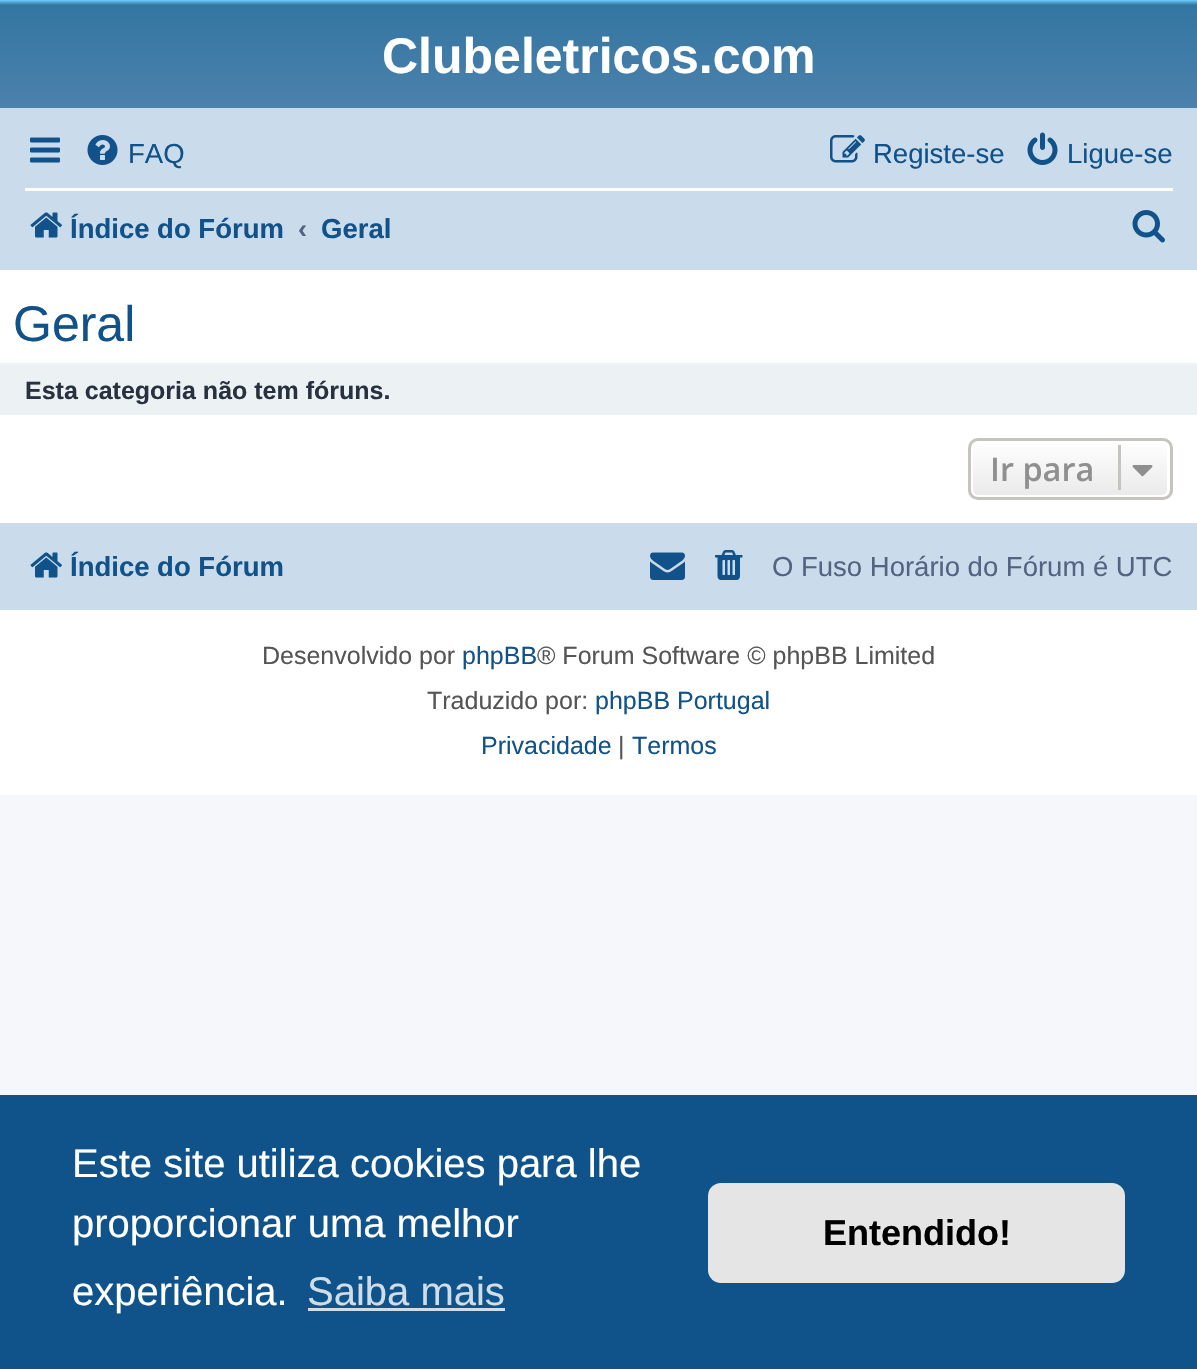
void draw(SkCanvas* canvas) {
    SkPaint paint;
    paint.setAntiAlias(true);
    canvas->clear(0xFFF5F7FA);
    paint.setColor(0xFFFFFFFF);
    canvas->drawRect(SkRect::MakeXYWH(0, 270, 1197, 525), paint);
    {
        const SkColor colors[] = {0xFF6ACEFF, 0xFF3376A1, 0xFF5586B1, 0xFFCCCCCC, 0xFFBBBBBB};
        const float stops[] = {0, 0.02f, 0.6f, 1, 1};
        const SkPoint ends[] = {{599, 0}, {599, 250}};
        paint.setShader(SkGradientShader::MakeLinear(ends, colors, stops, 5, SkTileMode::kClamp));
        paint.setAlpha(255);
    }
    canvas->drawRect(SkRect::MakeXYWH(0, 0, 1197, 108), paint);
    SkFont font1(fontMgr->matchFamilyStyle("Liberation Sans", SkFontStyle::Bold()), 50);
    font1.setSubpixel(true);
    paint.setShader(nullptr);
    paint.setColor(0xFFFFFFFF);
    canvas->drawString("Clubeletricos.com", 382, 73, font1, paint);
    paint.setColor(0xFFCADCEB);
    canvas->drawRect(SkRect::MakeXYWH(0, 108, 1197, 162), paint);
    canvas->drawImageRect(SkImages::DeferredFromEncodedData(SkData::MakeFromFileName("img1.png")), SkRect::MakeXYWH(30, 137, 30, 26), SkSamplingOptions());
    canvas->drawImageRect(SkImages::DeferredFromEncodedData(SkData::MakeFromFileName("img2.png")), SkRect::MakeXYWH(87, 135, 31, 30), SkSamplingOptions());
    SkFont font2(fontMgr->matchFamilyStyle("Liberation Sans", SkFontStyle::Normal()), 27.5f);
    font2.setSubpixel(true);
    paint.setColor(0xFF105289);
    canvas->drawString("FAQ", 128, 163, font2, paint);
    canvas->drawImageRect(SkImages::DeferredFromEncodedData(SkData::MakeFromFileName("img3.png")), SkRect::MakeXYWH(830, 135, 35, 28), SkSamplingOptions());
    canvas->drawString("Registe-se", 873, 163, font2, paint);
    canvas->drawImageRect(SkImages::DeferredFromEncodedData(SkData::MakeFromFileName("img4.png")), SkRect::MakeXYWH(1027, 132, 31, 33), SkSamplingOptions());
    canvas->drawString("Ligue-se", 1067, 163, font2, paint);
    paint.setColor(0xFFFFFFFF);
    canvas->drawRect(SkRect::MakeXYWH(25, 188, 1148, 3), paint);
    canvas->drawImageRect(SkImages::DeferredFromEncodedData(SkData::MakeFromFileName("img5.png")), SkRect::MakeXYWH(30, 212, 32, 26), SkSamplingOptions());
    SkFont font3(fontMgr->matchFamilyStyle("Liberation Sans", SkFontStyle::Bold()), 27.5f);
    font3.setSubpixel(true);
    paint.setColor(0xFF105289);
    canvas->drawString("Índice do Fórum", 70, 238, font3, paint);
    paint.setColor(0xFF536482);
    canvas->drawString("‹", 298, 238, font3, paint);
    paint.setColor(0xFF105289);
    canvas->drawString("Geral", 321, 238, font3, paint);
    canvas->drawImageRect(SkImages::DeferredFromEncodedData(SkData::MakeFromFileName("img6.png")), SkRect::MakeXYWH(1132, 210, 33, 33), SkSamplingOptions());
    SkFont font4(fontMgr->matchFamilyStyle("Liberation Sans", SkFontStyle::Normal()), 50);
    font4.setSubpixel(true);
    canvas->drawString("Geral", 13, 341, font4, paint);
    paint.setColor(0xFFECF1F3);
    canvas->drawRect(SkRect::MakeXYWH(0, 363, 1197, 52), paint);
    SkFont font5(fontMgr->matchFamilyStyle("Liberation Sans", SkFontStyle::Bold()), 25);
    font5.setSubpixel(true);
    paint.setColor(0xFF28313F);
    canvas->drawString("Esta categoria não tem fóruns.", 25, 399, font5, paint);
    canvas->save();
    canvas->clipPath(SkPathBuilder().moveTo(978, 438).lineTo(1163, 438).cubicTo(1168.5f, 438, 1173, 442.5f, 1173, 448).lineTo(1173, 490).cubicTo(1173, 495.5f, 1168.5f, 500, 1163, 500).lineTo(978, 500).cubicTo(972.5f, 500, 968, 495.5f, 968, 490).lineTo(968, 448).cubicTo(968, 442.5f, 972.5f, 438, 978, 438).close().detach(), true);
    {
        const SkColor colors[] = {0xFFFFFFFF, 0xFFE9E9E9};
        const float stops[] = {0, 1};
        const SkPoint ends[] = {{1070, 440}, {1070, 498}};
        paint.setShader(SkGradientShader::MakeLinear(ends, colors, stops, 2, SkTileMode::kClamp));
        paint.setAlpha(255);
    }
    canvas->drawRect(SkRect::MakeXYWH(968, 440, 205, 58), paint);
    canvas->restore();
    paint.setStyle(SkPaint::kStroke_Style);
    paint.setStrokeWidth(3);
    paint.setShader(nullptr);
    paint.setColor(0xFFFFFFFF);
    canvas->drawRoundRect(SkRect::MakeXYWH(971.5f, 441.5f, 197, 55), 6.5f, 6.5f, paint);
    paint.setColor(0xFFC7C3BF);
    canvas->drawRoundRect(SkRect::MakeXYWH(969.5f, 439.5f, 202, 59), 8.5f, 8.5f, paint);
    SkFont font6(fontMgr->matchFamilyStyle("Open Sans", SkFontStyle(600, SkFontStyle::kNormal_Width, SkFontStyle::kUpright_Slant)), 32.5f);
    font6.setSubpixel(true);
    paint.setStyle(SkPaint::kFill_Style);
    paint.setColor(0xFF8F8F8F);
    canvas->drawString("Ir para", 990, 481, font6, paint);
    paint.setColor(0xFFC7C3BF);
    canvas->drawRect(SkRect::MakeXYWH(1118, 445, 3, 45), paint);
    canvas->drawImageRect(SkImages::DeferredFromEncodedData(SkData::MakeFromFileName("img7.png")), SkRect::MakeXYWH(1132, 465, 21, 12), SkSamplingOptions());
    paint.setColor(0xFFCADCEB);
    canvas->drawRect(SkRect::MakeXYWH(0, 523, 1197, 87), paint);
    canvas->drawImageRect(SkImages::DeferredFromEncodedData(SkData::MakeFromFileName("img5.png")), SkRect::MakeXYWH(30, 552, 32, 26), SkSamplingOptions());
    paint.setColor(0xFF105289);
    canvas->drawString("Índice do Fórum", 70, 576, font3, paint);
    canvas->drawImageRect(SkImages::DeferredFromEncodedData(SkData::MakeFromFileName("img8.png")), SkRect::MakeXYWH(650, 552, 35, 28), SkSamplingOptions());
    canvas->drawImageRect(SkImages::DeferredFromEncodedData(SkData::MakeFromFileName("img9.png")), SkRect::MakeXYWH(715, 550, 28, 30), SkSamplingOptions());
    paint.setColor(0xFF536482);
    canvas->drawString("O Fuso Horário do Fórum é UTC", 772, 576, font2, paint);
    SkFont font7(fontMgr->matchFamilyStyle("Liberation Sans", SkFontStyle::Normal()), 25);
    font7.setSubpixel(true);
    paint.setColor(0xFF555555);
    canvas->drawString("Desenvolvido por", 262, 664, font7, paint);
    paint.setColor(0xFF105289);
    canvas->drawString("phpBB", 462, 664, font7, paint);
    paint.setColor(0xFF555555);
    canvas->drawString("® Forum Software © phpBB Limited", 537, 664, font7, paint);
    canvas->drawString("Traduzido por:", 427, 709, font7, paint);
    paint.setColor(0xFF105289);
    canvas->drawString("phpBB Portugal", 595, 709, font7, paint);
    canvas->drawString("Privacidade", 481, 754, font7, paint);
    paint.setColor(0xFF555555);
    canvas->drawString("|", 618, 754, font7, paint);
    paint.setColor(0xFF105289);
    canvas->drawString("Termos", 632, 754, font7, paint);
    paint.setColor(0xFF0F538A);
    canvas->drawRect(SkRect::MakeXYWH(0, 1095, 1197, 274), paint);
    SkFont font8(fontMgr->matchFamilyStyle("Liberation Sans", SkFontStyle::Normal()), 40);
    font8.setSubpixel(true);
    paint.setColor(0xFFFFFFFF);
    canvas->drawString("Este site utiliza cookies para lhe", 72, 1177, font8, paint);
    canvas->drawString("proporcionar uma melhor", 72, 1237, font8, paint);
    canvas->drawString("experiência.", 72, 1305, font8, paint);
    paint.setColor(0xFFCFDDE8);
    canvas->drawString("Saiba mais", 307, 1305, font8, paint);
    canvas->drawRect(SkRect::MakeXYWH(308, 1308, 197, 3), paint);
    paint.setColor(0xFFE5E5E5);
    canvas->drawRoundRect(SkRect::MakeXYWH(708, 1183, 417, 100), 13, 13, paint);
    SkFont font9(fontMgr->matchFamilyStyle("Liberation Sans", SkFontStyle::Bold()), 36);
    font9.setSubpixel(true);
    paint.setColor(0xFF000000);
    canvas->drawString("Entendido!", 823, 1245, font9, paint);
}
